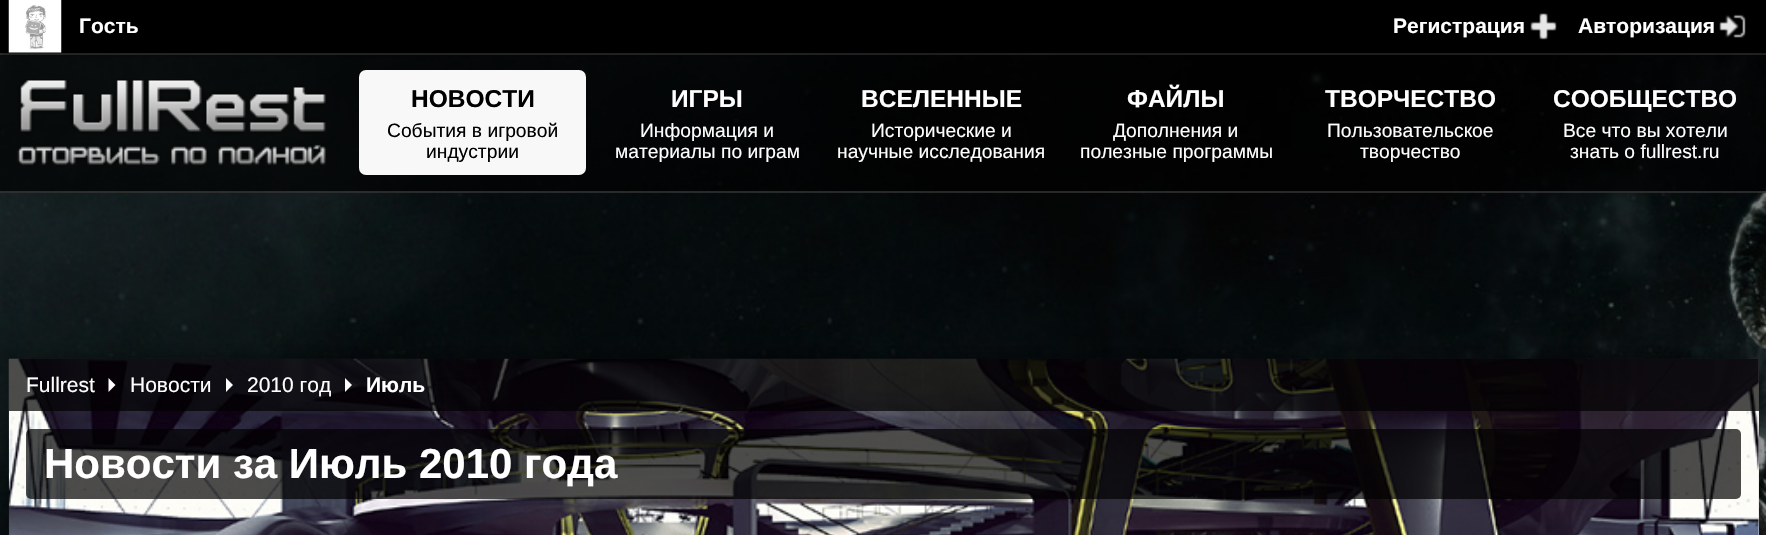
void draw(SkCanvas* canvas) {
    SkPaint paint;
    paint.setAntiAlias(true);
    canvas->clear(0xFFFFFFFF);
    canvas->drawImageRect(SkImages::DeferredFromEncodedData(SkData::MakeFromFileName("img1.png")), SkRect::MakeXYWH(0, 53, 1766, 482), SkSamplingOptions());
    paint.setColor(0xB3000000);
    canvas->drawRect(SkRect::MakeXYWH(0, 53, 1766, 140), paint);
    paint.setColor(0x26FFFFFF);
    canvas->drawRect(SkRect::MakeXYWH(0, 53, 1766, 2), paint);
    paint.setColor(0x80000000);
    paint.setMaskFilter(SkMaskFilter::MakeBlur(kNormal_SkBlurStyle, 2.5f));
    canvas->drawRect(SkRect::MakeXYWH(0, 2, 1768, 52), paint);
    paint.setMaskFilter(nullptr);
    paint.setColor(0xFF000000);
    canvas->drawRect(SkRect::MakeXYWH(0, 0, 1766, 53), paint);
    canvas->drawImageRect(SkImages::DeferredFromEncodedData(SkData::MakeFromFileName("img2.png")), SkRect::MakeXYWH(8, 0, 54, 53), SkSamplingOptions());
    SkFont font1(fontMgr->matchFamilyStyle("Liberation Sans", SkFontStyle::Bold()), 21);
    font1.setSubpixel(true);
    paint.setColor(0xFFFFFFFF);
    canvas->drawString("Гость", 79, 33, font1, paint);
    canvas->drawString("Регистрация", 1393, 33, font1, paint);
    canvas->drawImageRect(SkImages::DeferredFromEncodedData(SkData::MakeFromFileName("img3.png")), SkRect::MakeXYWH(1530, 13, 27, 27), SkSamplingOptions());
    canvas->drawString("Авторизация", 1578, 33, font1, paint);
    canvas->drawImageRect(SkImages::DeferredFromEncodedData(SkData::MakeFromFileName("img4.png")), SkRect::MakeXYWH(1719, 14, 27, 24), SkSamplingOptions());
    paint.setColor(0x26FFFFFF);
    canvas->drawRect(SkRect::MakeXYWH(0, 191, 1766, 2), paint);
    canvas->drawImageRect(SkImages::DeferredFromEncodedData(SkData::MakeFromFileName("img5.png")), SkRect::MakeXYWH(17, 79, 309, 86), SkSamplingOptions());
    paint.setColor(0xFFF8F8F8);
    canvas->drawRoundRect(SkRect::MakeXYWH(359, 70, 227, 105), 7, 7, paint);
    SkFont font2(fontMgr->matchFamilyStyle("Liberation Sans", SkFontStyle::Bold()), 24.5f);
    font2.setSubpixel(true);
    paint.setColor(0xFF000000);
    canvas->drawString("НОВОСТИ", 411, 107, font2, paint);
    SkFont font3(fontMgr->matchFamilyStyle("Liberation Sans", SkFontStyle::Normal()), 19.25f);
    font3.setSubpixel(true);
    canvas->drawString("События в игровой", 387, 137, font3, paint);
    canvas->drawString("индустрии", 426, 158, font3, paint);
    paint.setColor(0xFFFFFFFF);
    canvas->drawString("ИГРЫ", 671, 107, font2, paint);
    canvas->drawString("Информация и", 640, 137, font3, paint);
    canvas->drawString("материалы по играм", 615, 158, font3, paint);
    canvas->drawString("ВСЕЛЕННЫЕ", 861, 107, font2, paint);
    canvas->drawString("Исторические и", 871, 137, font3, paint);
    canvas->drawString("научные исследования", 837, 158, font3, paint);
    canvas->drawString("ФАЙЛЫ", 1127, 107, font2, paint);
    canvas->drawString("Дополнения и", 1113, 137, font3, paint);
    canvas->drawString("полезные программы", 1080, 158, font3, paint);
    canvas->drawString("ТВОРЧЕСТВО", 1325, 107, font2, paint);
    canvas->drawString("Пользовательское", 1327, 137, font3, paint);
    canvas->drawString("творчество", 1360, 158, font3, paint);
    canvas->drawString("СООБЩЕСТВО", 1553, 107, font2, paint);
    canvas->drawString("Все что вы хотели", 1563, 137, font3, paint);
    canvas->drawString("знать о fullrest.ru", 1570, 158, font3, paint);
    paint.setColor(0x80000000);
    paint.setMaskFilter(SkMaskFilter::MakeBlur(kNormal_SkBlurStyle, 9));
    canvas->drawRect(SkRect::MakeXYWH(9, 359, 1750, 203), paint);
    paint.setMaskFilter(nullptr);
    paint.setColor(0xFFD7D7D7);
    canvas->drawRect(SkRect::MakeXYWH(1758, 359, 1, 176), paint);
    canvas->drawImageRect(SkImages::DeferredFromEncodedData(SkData::MakeFromFileName("img6.png")), SkRect::MakeXYWH(8, 358, 1751, 177), SkSamplingOptions());
    paint.setColor(0xB3000000);
    canvas->drawRect(SkRect::MakeXYWH(9, 359, 1750, 52), paint);
    SkFont font4(fontMgr->matchFamilyStyle("Liberation Sans", SkFontStyle::Normal()), 21);
    font4.setSubpixel(true);
    paint.setColor(0xFFFFFFFF);
    canvas->drawString("Fullrest", 26, 392, font4, paint);
    canvas->drawPath(SkPathBuilder().moveTo(108.5f, 392).lineTo(108.5f, 378).lineTo(115.5f, 385).close().detach(), paint);
    canvas->drawString("Новости", 130, 392, font4, paint);
    canvas->drawPath(SkPathBuilder().moveTo(226, 392).lineTo(226, 378).lineTo(233, 385).close().detach(), paint);
    canvas->drawString("2010 год", 247, 392, font4, paint);
    canvas->drawPath(SkPathBuilder().moveTo(345, 392).lineTo(345, 378).lineTo(352, 385).close().detach(), paint);
    canvas->drawString("Июль", 366, 392, font1, paint);
    paint.setColor(0xB3000000);
    canvas->drawRoundRect(SkRect::MakeXYWH(26, 429, 1715, 70), 5, 5, paint);
    SkFont font5(fontMgr->matchFamilyStyle("Liberation Sans", SkFontStyle::Bold()), 42);
    font5.setSubpixel(true);
    paint.setColor(0xFFFFFFFF);
    canvas->drawString("Новости за Июль 2010 года", 44, 478, font5, paint);
}
